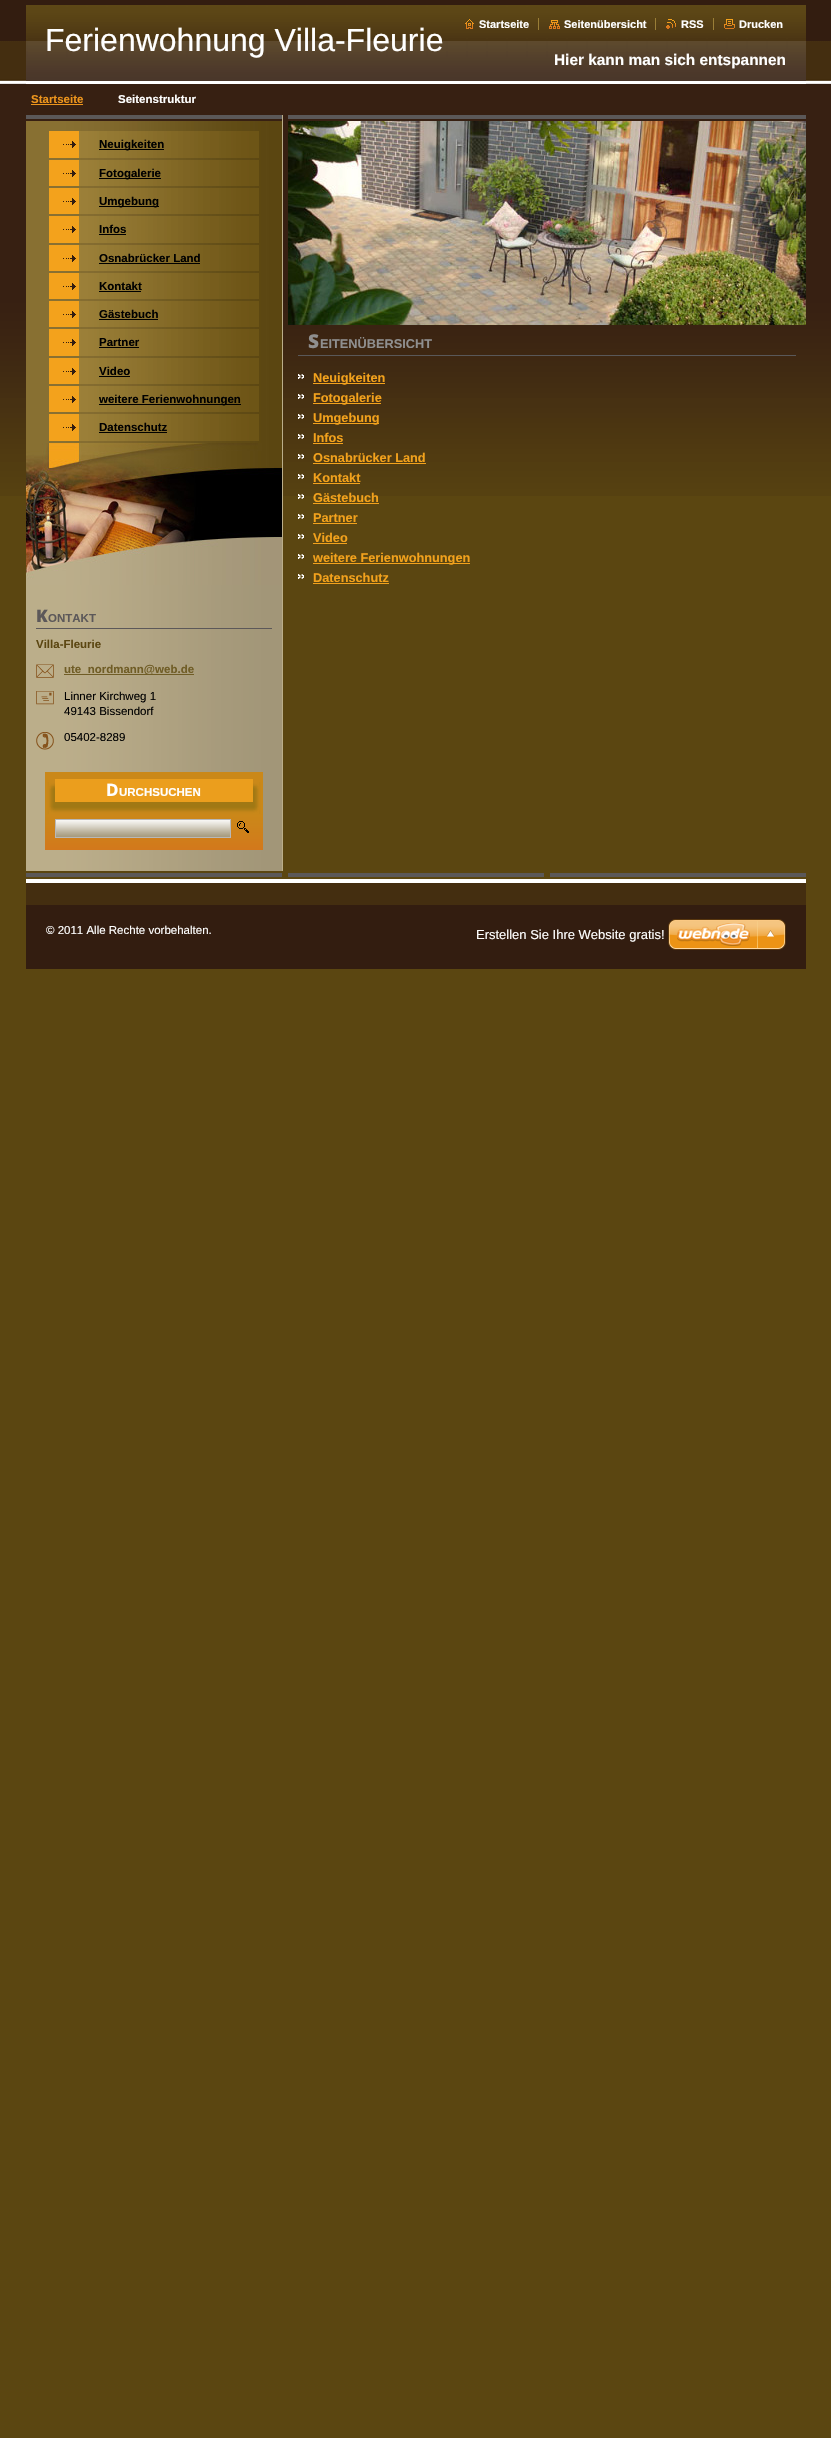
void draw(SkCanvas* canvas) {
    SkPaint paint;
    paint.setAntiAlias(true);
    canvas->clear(0xFF5B4611);
    canvas->drawImageRect(SkImages::DeferredFromEncodedData(SkData::MakeFromFileName("img1.png")), SkRect::MakeXYWH(0, 0, 831, 496), SkSamplingOptions());
    canvas->drawImageRect(SkImages::DeferredFromEncodedData(SkData::MakeFromFileName("img2.png")), SkRect::MakeXYWH(26, 115, 257, 756), SkSamplingOptions());
    canvas->drawImageRect(SkImages::DeferredFromEncodedData(SkData::MakeFromFileName("img3.png")), SkRect::MakeXYWH(26, 0, 780, 81), SkSamplingOptions());
    paint.setColor(0xFFFFFFFF);
    canvas->drawRect(SkRect::MakeXYWH(26, 83, 780, 1), paint);
    canvas->drawImageRect(SkImages::DeferredFromEncodedData(SkData::MakeFromFileName("img4.png")), SkRect::MakeXYWH(465, 19, 9, 10), SkSamplingOptions());
    SkFont font1(fontMgr->matchFamilyStyle("Liberation Sans", SkFontStyle::Bold()), 11);
    font1.setSubpixel(true);
    canvas->drawString("Startseite", 479, 28, font1, paint);
    canvas->drawImageRect(SkImages::DeferredFromEncodedData(SkData::MakeFromFileName("img5.png")), SkRect::MakeXYWH(549, 20, 11, 9), SkSamplingOptions());
    canvas->drawString("Seitenübersicht", 564, 28, font1, paint);
    paint.setColor(0xFF9A7E37);
    canvas->drawRect(SkRect::MakeXYWH(538, 18, 1, 12), paint);
    canvas->drawImageRect(SkImages::DeferredFromEncodedData(SkData::MakeFromFileName("img6.png")), SkRect::MakeXYWH(666, 19, 10, 10), SkSamplingOptions());
    paint.setColor(0xFFFFFFFF);
    canvas->drawString("RSS", 681, 28, font1, paint);
    paint.setColor(0xFF9A7E37);
    canvas->drawRect(SkRect::MakeXYWH(655, 18, 1, 12), paint);
    canvas->drawImageRect(SkImages::DeferredFromEncodedData(SkData::MakeFromFileName("img7.png")), SkRect::MakeXYWH(724, 19, 11, 10), SkSamplingOptions());
    paint.setColor(0xFFFFFFFF);
    canvas->drawString("Drucken", 739, 28, font1, paint);
    paint.setColor(0xFF9A7E37);
    canvas->drawRect(SkRect::MakeXYWH(713, 18, 1, 12), paint);
    SkFont font2(fontMgr->matchFamilyStyle("Liberation Sans", SkFontStyle::Normal()), 32);
    font2.setSubpixel(true);
    paint.setColor(0xFFFFFFFF);
    canvas->drawString("Ferienwohnung Villa-Fleurie", 45, 51, font2, paint);
    SkFont font3(fontMgr->matchFamilyStyle("Liberation Sans", SkFontStyle::Bold()), 15.4f);
    font3.setSubpixel(true);
    canvas->drawString("Hier kann man sich entspannen", 554, 65, font3, paint);
    paint.setColor(0xFF372012);
    canvas->drawRect(SkRect::MakeXYWH(26, 84, 780, 1), paint);
    SkFont font4(fontMgr->matchFamilyStyle("Liberation Sans", SkFontStyle::Bold()), 11.5f);
    font4.setSubpixel(true);
    paint.setColor(0xFFED951C);
    canvas->drawString("Startseite", 31, 103, font4, paint);
    canvas->drawRect(SkRect::MakeXYWH(31, 104, 52, 1), paint);
    paint.setColor(0xFFFFFFFF);
    canvas->drawString("Seitenstruktur", 118, 103, font4, paint);
    canvas->drawImageRect(SkImages::DeferredFromEncodedData(SkData::MakeFromFileName("img8.png")), SkRect::MakeXYWH(26, 115, 256, 6), SkSamplingOptions());
    canvas->drawImageRect(SkImages::DeferredFromEncodedData(SkData::MakeFromFileName("img9.png")), SkRect::MakeXYWH(26, 121, 256, 322), SkSamplingOptions());
    canvas->drawImageRect(SkImages::DeferredFromEncodedData(SkData::MakeFromFileName("img10.png")), SkRect::MakeXYWH(49, 131, 210, 27), SkSamplingOptions());
    canvas->drawImageRect(SkImages::DeferredFromEncodedData(SkData::MakeFromFileName("img11.png")), SkRect::MakeXYWH(63, 141, 13, 7), SkSamplingOptions());
    paint.setColor(0xFF000000);
    canvas->drawRect(SkRect::MakeXYWH(99, 149, 65, 1), paint);
    canvas->drawString("Neuigkeiten", 99, 148, font4, paint);
    canvas->drawImageRect(SkImages::DeferredFromEncodedData(SkData::MakeFromFileName("img12.png")), SkRect::MakeXYWH(49, 160, 210, 26), SkSamplingOptions());
    canvas->drawImageRect(SkImages::DeferredFromEncodedData(SkData::MakeFromFileName("img11.png")), SkRect::MakeXYWH(63, 170, 13, 7), SkSamplingOptions());
    canvas->drawRect(SkRect::MakeXYWH(99, 178, 62, 1), paint);
    canvas->drawString("Fotogalerie", 99, 177, font4, paint);
    canvas->drawImageRect(SkImages::DeferredFromEncodedData(SkData::MakeFromFileName("img12.png")), SkRect::MakeXYWH(49, 188, 210, 26), SkSamplingOptions());
    canvas->drawImageRect(SkImages::DeferredFromEncodedData(SkData::MakeFromFileName("img11.png")), SkRect::MakeXYWH(63, 198, 13, 7), SkSamplingOptions());
    canvas->drawRect(SkRect::MakeXYWH(99, 206, 60, 1), paint);
    canvas->drawString("Umgebung", 99, 205, font4, paint);
    canvas->drawImageRect(SkImages::DeferredFromEncodedData(SkData::MakeFromFileName("img10.png")), SkRect::MakeXYWH(49, 216, 210, 27), SkSamplingOptions());
    canvas->drawImageRect(SkImages::DeferredFromEncodedData(SkData::MakeFromFileName("img11.png")), SkRect::MakeXYWH(63, 226, 13, 7), SkSamplingOptions());
    canvas->drawString("Infos", 99, 233, font4, paint);
    canvas->drawRect(SkRect::MakeXYWH(99, 234, 27, 1), paint);
    canvas->drawImageRect(SkImages::DeferredFromEncodedData(SkData::MakeFromFileName("img12.png")), SkRect::MakeXYWH(49, 245, 210, 26), SkSamplingOptions());
    canvas->drawImageRect(SkImages::DeferredFromEncodedData(SkData::MakeFromFileName("img11.png")), SkRect::MakeXYWH(63, 255, 13, 7), SkSamplingOptions());
    canvas->drawString("Osnabrücker Land", 99, 262, font4, paint);
    canvas->drawRect(SkRect::MakeXYWH(99, 263, 101, 1), paint);
    canvas->drawImageRect(SkImages::DeferredFromEncodedData(SkData::MakeFromFileName("img12.png")), SkRect::MakeXYWH(49, 273, 210, 26), SkSamplingOptions());
    canvas->drawImageRect(SkImages::DeferredFromEncodedData(SkData::MakeFromFileName("img11.png")), SkRect::MakeXYWH(63, 283, 13, 7), SkSamplingOptions());
    canvas->drawString("Kontakt", 99, 290, font4, paint);
    canvas->drawRect(SkRect::MakeXYWH(99, 291, 42, 1), paint);
    canvas->drawImageRect(SkImages::DeferredFromEncodedData(SkData::MakeFromFileName("img12.png")), SkRect::MakeXYWH(49, 301, 210, 26), SkSamplingOptions());
    canvas->drawImageRect(SkImages::DeferredFromEncodedData(SkData::MakeFromFileName("img11.png")), SkRect::MakeXYWH(63, 311, 13, 7), SkSamplingOptions());
    canvas->drawString("Gästebuch", 99, 318, font4, paint);
    canvas->drawRect(SkRect::MakeXYWH(99, 319, 59, 1), paint);
    canvas->drawImageRect(SkImages::DeferredFromEncodedData(SkData::MakeFromFileName("img10.png")), SkRect::MakeXYWH(49, 329, 210, 27), SkSamplingOptions());
    canvas->drawImageRect(SkImages::DeferredFromEncodedData(SkData::MakeFromFileName("img11.png")), SkRect::MakeXYWH(63, 339, 13, 7), SkSamplingOptions());
    canvas->drawString("Partner", 99, 346, font4, paint);
    canvas->drawRect(SkRect::MakeXYWH(99, 347, 40, 1), paint);
    canvas->drawImageRect(SkImages::DeferredFromEncodedData(SkData::MakeFromFileName("img12.png")), SkRect::MakeXYWH(49, 358, 210, 26), SkSamplingOptions());
    canvas->drawImageRect(SkImages::DeferredFromEncodedData(SkData::MakeFromFileName("img11.png")), SkRect::MakeXYWH(63, 368, 13, 7), SkSamplingOptions());
    canvas->drawString("Video", 99, 375, font4, paint);
    canvas->drawRect(SkRect::MakeXYWH(99, 376, 31, 1), paint);
    canvas->drawImageRect(SkImages::DeferredFromEncodedData(SkData::MakeFromFileName("img12.png")), SkRect::MakeXYWH(49, 386, 210, 26), SkSamplingOptions());
    canvas->drawImageRect(SkImages::DeferredFromEncodedData(SkData::MakeFromFileName("img11.png")), SkRect::MakeXYWH(63, 396, 13, 7), SkSamplingOptions());
    canvas->drawRect(SkRect::MakeXYWH(99, 404, 142, 1), paint);
    canvas->drawString("weitere Ferienwohnungen", 99, 403, font4, paint);
    canvas->drawImageRect(SkImages::DeferredFromEncodedData(SkData::MakeFromFileName("img10.png")), SkRect::MakeXYWH(49, 414, 210, 27), SkSamplingOptions());
    canvas->drawImageRect(SkImages::DeferredFromEncodedData(SkData::MakeFromFileName("img11.png")), SkRect::MakeXYWH(63, 424, 13, 7), SkSamplingOptions());
    canvas->drawString("Datenschutz", 99, 431, font4, paint);
    canvas->drawRect(SkRect::MakeXYWH(99, 432, 68, 1), paint);
    canvas->drawImageRect(SkImages::DeferredFromEncodedData(SkData::MakeFromFileName("img13.png")), SkRect::MakeXYWH(26, 443, 256, 142), SkSamplingOptions());
    paint.setColor(0xFF5C5859);
    canvas->drawRect(SkRect::MakeXYWH(36, 628, 236, 1), paint);
    SkFont font5(fontMgr->matchFamilyStyle("Noto Sans", SkFontStyle(900, SkFontStyle::kNormal_Width, SkFontStyle::kUpright_Slant)), 17);
    font5.setSubpixel(true);
    canvas->drawString("K", 36, 622, font5, paint);
    canvas->drawString("ONTAKT", 48, 622, font4, paint);
    paint.setColor(0xFF5B4611);
    canvas->drawString("Villa-Fleurie", 36, 648, font4, paint);
    canvas->drawImageRect(SkImages::DeferredFromEncodedData(SkData::MakeFromFileName("img14.png")), SkRect::MakeXYWH(36, 664, 18, 14), SkSamplingOptions());
    paint.setColor(0xFF705D26);
    canvas->drawRect(SkRect::MakeXYWH(64, 674, 130, 1), paint);
    canvas->drawString("ute_nordmann@web.de", 64, 673, font4, paint);
    canvas->drawImageRect(SkImages::DeferredFromEncodedData(SkData::MakeFromFileName("img15.png")), SkRect::MakeXYWH(36, 691, 18, 14), SkSamplingOptions());
    SkFont font6(fontMgr->matchFamilyStyle("Liberation Sans", SkFontStyle::Normal()), 11.5f);
    font6.setSubpixel(true);
    paint.setColor(0xFF000000);
    canvas->drawString("Linner Kirchweg 1", 64, 700, font6, paint);
    canvas->drawString("49143 Bissendorf", 64, 715, font6, paint);
    canvas->drawImageRect(SkImages::DeferredFromEncodedData(SkData::MakeFromFileName("img16.png")), SkRect::MakeXYWH(36, 732, 18, 18), SkSamplingOptions());
    canvas->drawString("05402-8289", 64, 741, font6, paint);
    canvas->drawImageRect(SkImages::DeferredFromEncodedData(SkData::MakeFromFileName("img17.png")), SkRect::MakeXYWH(45, 772, 218, 78), SkSamplingOptions());
    paint.setColor(0xFFA07814);
    canvas->drawRect(SkRect::MakeXYWH(55, 802, 198, 5), paint);
    canvas->drawImageRect(SkImages::DeferredFromEncodedData(SkData::MakeFromFileName("img18.png")), SkRect::MakeXYWH(45, 782, 218, 32), SkSamplingOptions());
    canvas->drawImageRect(SkImages::DeferredFromEncodedData(SkData::MakeFromFileName("img19.png")), SkRect::MakeXYWH(49, 782, 210, 7), SkSamplingOptions());
    paint.setColor(0xFFEB9E1D);
    canvas->drawRect(SkRect::MakeXYWH(55, 779, 198, 23), paint);
    SkFont font7(fontMgr->matchFamilyStyle("Noto Sans", SkFontStyle::Bold()), 17);
    font7.setSubpixel(true);
    paint.setColor(0xFFFFFFFF);
    canvas->drawString("D", 106, 796, font7, paint);
    canvas->drawString("URCHSUCHEN", 119, 796, font4, paint);
    canvas->drawImageRect(SkImages::DeferredFromEncodedData(SkData::MakeFromFileName("img20.png")), SkRect::MakeXYWH(49, 807, 210, 7), SkSamplingOptions());
    canvas->drawImageRect(SkImages::DeferredFromEncodedData(SkData::MakeFromFileName("img21.png")), SkRect::MakeXYWH(56, 820, 174, 17), SkSamplingOptions());
    paint.setStyle(SkPaint::kStroke_Style);
    paint.setStrokeWidth(1);
    paint.setColor(0xFFB8B8B8);
    canvas->drawRect(SkRect::MakeXYWH(55.5f, 819.5f, 175, 18), paint);
    canvas->drawImageRect(SkImages::DeferredFromEncodedData(SkData::MakeFromFileName("img22.png")), SkRect::MakeXYWH(237, 821, 12, 12), SkSamplingOptions());
    paint.setStyle(SkPaint::kFill_Style);
    paint.setColor(0xFF5B5858);
    canvas->drawRect(SkRect::MakeXYWH(288, 115, 518, 4), paint);
    canvas->drawImageRect(SkImages::DeferredFromEncodedData(SkData::MakeFromFileName("img23.png")), SkRect::MakeXYWH(288, 121, 518, 204), SkSamplingOptions());
    paint.setColor(0xFF5A5859);
    canvas->drawRect(SkRect::MakeXYWH(298, 355, 498, 1), paint);
    SkFont font8(fontMgr->matchFamilyStyle("Noto Sans", SkFontStyle(900, SkFontStyle::kNormal_Width, SkFontStyle::kUpright_Slant)), 19);
    font8.setSubpixel(true);
    paint.setColor(0xFF8F8F8F);
    canvas->drawString("S", 308, 348, font8, paint);
    SkFont font9(fontMgr->matchFamilyStyle("Liberation Sans", SkFontStyle::Bold()), 12.75f);
    font9.setSubpixel(true);
    canvas->drawString("EITENÜBERSICHT", 320, 348, font9, paint);
    canvas->drawImageRect(SkImages::DeferredFromEncodedData(SkData::MakeFromFileName("img24.png")), SkRect::MakeXYWH(298, 374, 6, 5), SkSamplingOptions());
    paint.setColor(0xFFF3A21C);
    canvas->drawRect(SkRect::MakeXYWH(313, 383, 72, 1), paint);
    canvas->drawString("Neuigkeiten", 313, 382, font9, paint);
    canvas->drawImageRect(SkImages::DeferredFromEncodedData(SkData::MakeFromFileName("img25.png")), SkRect::MakeXYWH(298, 394, 6, 5), SkSamplingOptions());
    canvas->drawRect(SkRect::MakeXYWH(313, 403, 68, 1), paint);
    canvas->drawString("Fotogalerie", 313, 402, font9, paint);
    canvas->drawImageRect(SkImages::DeferredFromEncodedData(SkData::MakeFromFileName("img26.png")), SkRect::MakeXYWH(298, 414, 6, 5), SkSamplingOptions());
    canvas->drawRect(SkRect::MakeXYWH(313, 423, 66, 1), paint);
    canvas->drawString("Umgebung", 313, 422, font9, paint);
    canvas->drawImageRect(SkImages::DeferredFromEncodedData(SkData::MakeFromFileName("img27.png")), SkRect::MakeXYWH(298, 434, 6, 5), SkSamplingOptions());
    canvas->drawString("Infos", 313, 442, font9, paint);
    canvas->drawRect(SkRect::MakeXYWH(313, 443, 30, 1), paint);
    canvas->drawImageRect(SkImages::DeferredFromEncodedData(SkData::MakeFromFileName("img28.png")), SkRect::MakeXYWH(298, 454, 6, 5), SkSamplingOptions());
    canvas->drawString("Osnabrücker Land", 313, 462, font9, paint);
    canvas->drawRect(SkRect::MakeXYWH(313, 463, 113, 1), paint);
    canvas->drawImageRect(SkImages::DeferredFromEncodedData(SkData::MakeFromFileName("img29.png")), SkRect::MakeXYWH(298, 474, 6, 5), SkSamplingOptions());
    canvas->drawString("Kontakt", 313, 482, font9, paint);
    canvas->drawRect(SkRect::MakeXYWH(313, 483, 47, 1), paint);
    canvas->drawImageRect(SkImages::DeferredFromEncodedData(SkData::MakeFromFileName("img30.png")), SkRect::MakeXYWH(298, 494, 6, 5), SkSamplingOptions());
    canvas->drawString("Gästebuch", 313, 502, font9, paint);
    canvas->drawRect(SkRect::MakeXYWH(313, 503, 66, 1), paint);
    canvas->drawImageRect(SkImages::DeferredFromEncodedData(SkData::MakeFromFileName("img31.png")), SkRect::MakeXYWH(298, 514, 6, 5), SkSamplingOptions());
    canvas->drawString("Partner", 313, 522, font9, paint);
    canvas->drawRect(SkRect::MakeXYWH(313, 523, 44, 1), paint);
    canvas->drawImageRect(SkImages::DeferredFromEncodedData(SkData::MakeFromFileName("img31.png")), SkRect::MakeXYWH(298, 534, 6, 5), SkSamplingOptions());
    canvas->drawString("Video", 313, 542, font9, paint);
    canvas->drawRect(SkRect::MakeXYWH(313, 543, 34, 1), paint);
    canvas->drawImageRect(SkImages::DeferredFromEncodedData(SkData::MakeFromFileName("img31.png")), SkRect::MakeXYWH(298, 554, 6, 5), SkSamplingOptions());
    canvas->drawRect(SkRect::MakeXYWH(313, 563, 157, 1), paint);
    canvas->drawString("weitere Ferienwohnungen", 313, 562, font9, paint);
    canvas->drawImageRect(SkImages::DeferredFromEncodedData(SkData::MakeFromFileName("img31.png")), SkRect::MakeXYWH(298, 574, 6, 5), SkSamplingOptions());
    canvas->drawString("Datenschutz", 313, 582, font9, paint);
    canvas->drawRect(SkRect::MakeXYWH(313, 583, 76, 1), paint);
    paint.setColor(0xFF331D10);
    canvas->drawRect(SkRect::MakeXYWH(26, 905, 780, 64), paint);
    canvas->drawImageRect(SkImages::DeferredFromEncodedData(SkData::MakeFromFileName("img32.png")), SkRect::MakeXYWH(26, 871, 780, 12), SkSamplingOptions());
    paint.setColor(0xFF442E10);
    canvas->drawRect(SkRect::MakeXYWH(26, 883, 780, 22), paint);
    paint.setColor(0xFFFFFFFF);
    canvas->drawString("© 2011 Alle Rechte vorbehalten.", 46, 934, font6, paint);
    SkFont font10(fontMgr->matchFamilyStyle("Liberation Sans", SkFontStyle::Normal()), 13);
    font10.setSubpixel(true);
    canvas->drawString("Erstellen Sie Ihre Website gratis!", 476, 939, font10, paint);
    canvas->drawImageRect(SkImages::DeferredFromEncodedData(SkData::MakeFromFileName("img33.png")), SkRect::MakeXYWH(668, 919, 118, 31), SkSamplingOptions());
}
